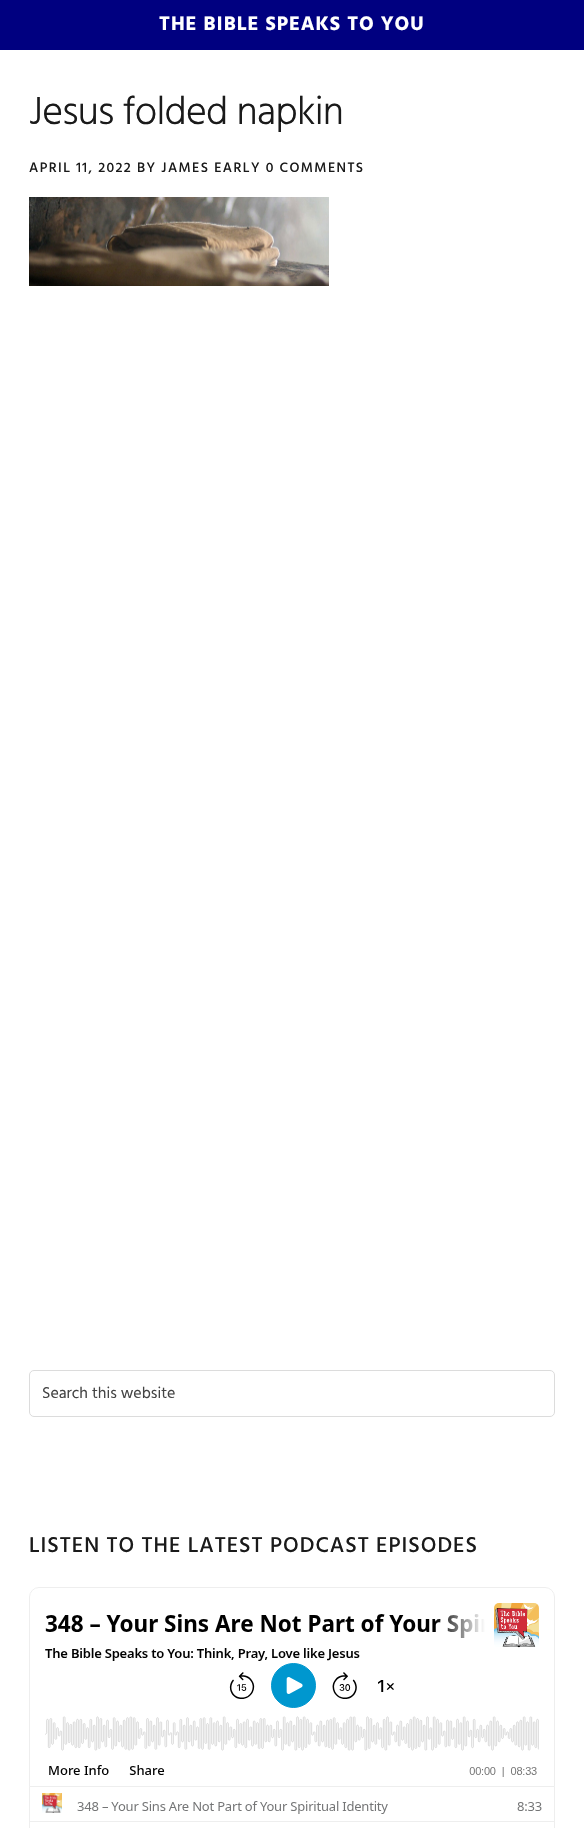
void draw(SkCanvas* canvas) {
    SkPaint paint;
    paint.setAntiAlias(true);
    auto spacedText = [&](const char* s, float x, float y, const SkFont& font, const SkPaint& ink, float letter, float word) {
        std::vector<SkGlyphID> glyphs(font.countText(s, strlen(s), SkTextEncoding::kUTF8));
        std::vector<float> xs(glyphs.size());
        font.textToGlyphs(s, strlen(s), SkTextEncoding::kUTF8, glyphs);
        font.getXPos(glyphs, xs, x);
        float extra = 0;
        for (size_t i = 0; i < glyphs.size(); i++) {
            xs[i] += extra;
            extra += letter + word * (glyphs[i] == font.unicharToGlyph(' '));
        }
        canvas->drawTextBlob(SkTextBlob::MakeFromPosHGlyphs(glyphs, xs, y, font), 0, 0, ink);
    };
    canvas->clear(0xFFFFFFFF);
    paint.setColor(0xFF000080);
    canvas->drawRect(SkRect::MakeXYWH(0, 0, 584, 50), paint);
    SkFont font1(fontMgr->matchFamilyStyle("Hind", SkFontStyle::Bold()), 20);
    font1.setSubpixel(true);
    paint.setColor(0xFFFFFFFF);
    spacedText("THE BIBLE SPEAKS TO YOU", 159, 30, font1, paint, 1, 0);
    SkFont font2(fontMgr->matchFamilyStyle("Hind", SkFontStyle(300, SkFontStyle::kNormal_Width, SkFontStyle::kUpright_Slant)), 40);
    font2.setSubpixel(true);
    paint.setColor(0xFF1A1A1A);
    spacedText("Jesus folded napkin", 29, 124, font2, paint, -0.75f, 0);
    SkFont font3(fontMgr->matchFamilyStyle("Hind", SkFontStyle(500, SkFontStyle::kNormal_Width, SkFontStyle::kUpright_Slant)), 14);
    font3.setSubpixel(true);
    spacedText("APRIL 11, 2022 BY JAMES EARLY 0 COMMENTS", 29, 172, font3, paint, 1.4f, 0);
    canvas->drawImageRect(SkImages::DeferredFromEncodedData(SkData::MakeFromFileName("img1.png")), SkRect::MakeXYWH(29, 197, 300, 89), SkSamplingOptions());
    paint.setStyle(SkPaint::kStroke_Style);
    paint.setStrokeWidth(1);
    paint.setColor(0xFFDCDCDC);
    canvas->drawRoundRect(SkRect::MakeXYWH(29.5f, 1370.5f, 525, 46), 4.5f, 4.5f, paint);
    SkFont font4(fontMgr->matchFamilyStyle("Hind", SkFontStyle::Normal()), 16);
    font4.setSubpixel(true);
    paint.setStyle(SkPaint::kFill_Style);
    paint.setColor(0xFF444444);
    canvas->drawString("Search this website", 42, 1398, font4, paint);
    SkFont font5(fontMgr->matchFamilyStyle("Hind", SkFontStyle(500, SkFontStyle::kNormal_Width, SkFontStyle::kUpright_Slant)), 22);
    font5.setSubpixel(true);
    paint.setColor(0xFF1A1A1A);
    spacedText("LISTEN TO THE LATEST PODCAST EPISODES", 29, 1552, font5, paint, 1, 0);
    canvas->drawImageRect(SkImages::DeferredFromEncodedData(SkData::MakeFromFileName("img2.png")), SkRect::MakeXYWH(29, 1587, 526, 241), SkSamplingOptions());
}
